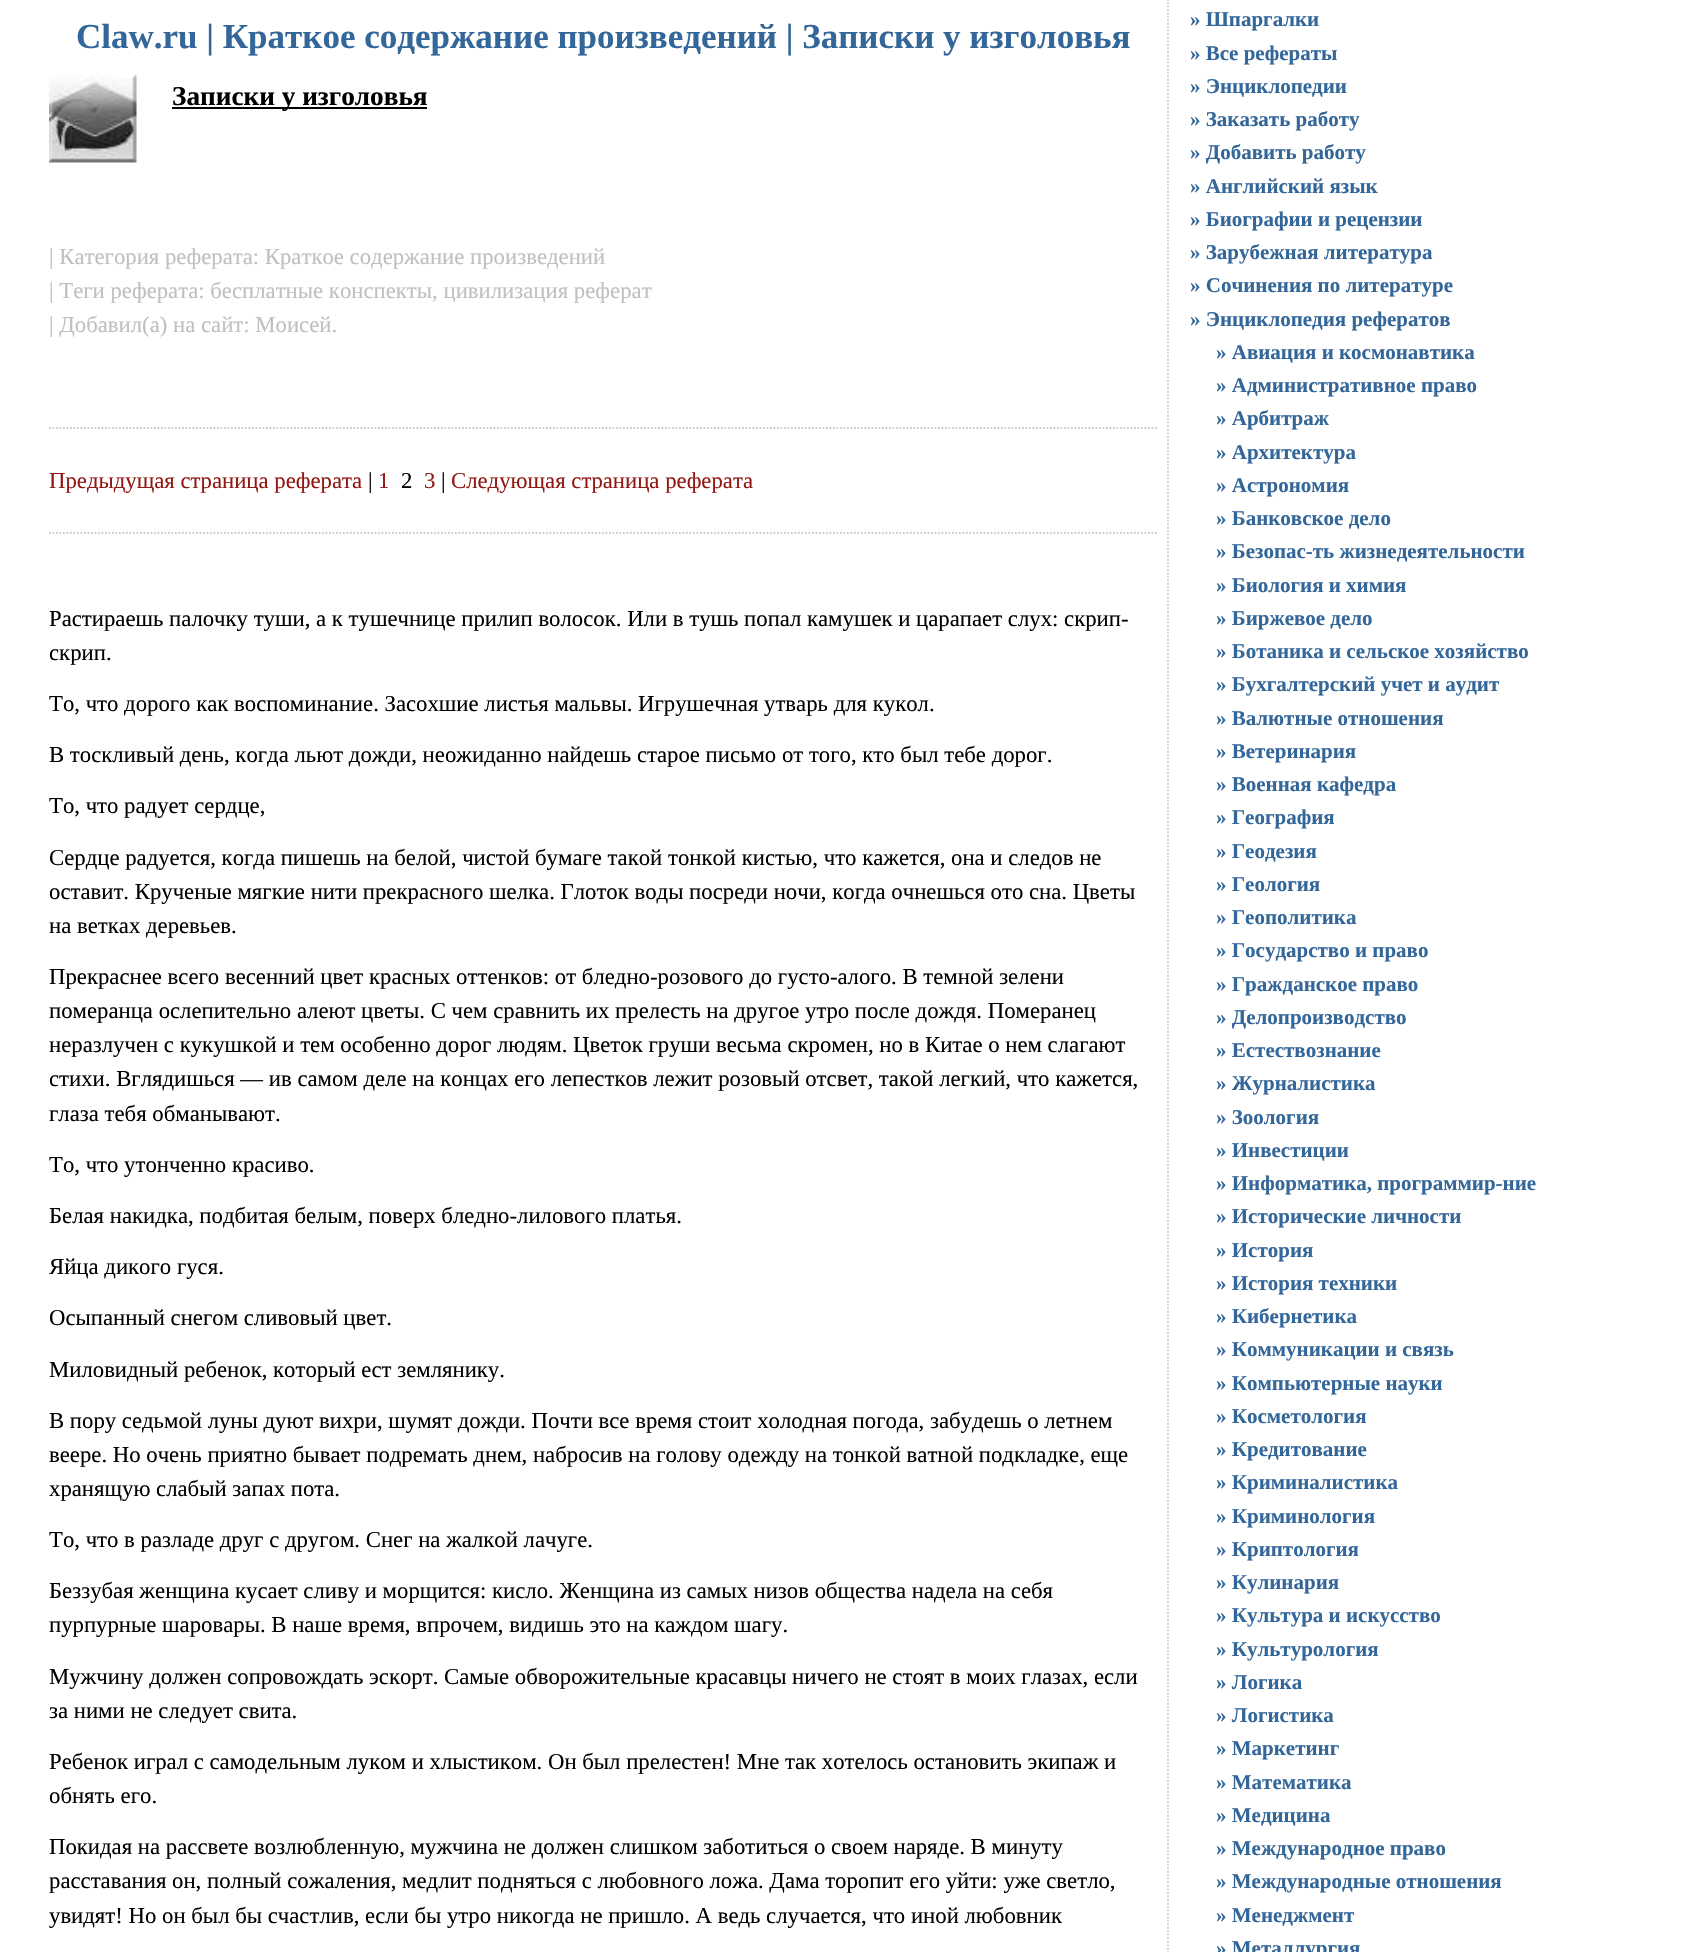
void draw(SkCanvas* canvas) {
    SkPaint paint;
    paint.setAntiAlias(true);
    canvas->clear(0xFFFFFFFF);
    paint.setStyle(SkPaint::kStroke_Style);
    paint.setStrokeWidth(1.8f);
    paint.setColor(0xFFCCCCCC);
    paint.setPathEffect(SkDashPathEffect::Make({{1.75f, 1.75f}}, 0));
    canvas->drawPath(SkPathBuilder().moveTo(1168, -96).lineTo(1168, 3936).detach(), paint);
    paint.setPathEffect(nullptr);
    SkFont font1(fontMgr->matchFamilyStyle("Liberation Serif", SkFontStyle::Bold()), 35);
    font1.setSubpixel(true);
    paint.setStyle(SkPaint::kFill_Style);
    paint.setColor(0xFF336699);
    canvas->drawString("Claw.ru | Краткое содержание произведений | Записки у изголовья", 76, 48, font1, paint);
    canvas->drawImageRect(SkImages::DeferredFromEncodedData(SkData::MakeFromFileName("img1.png")), SkRect::MakeXYWH(49, 75, 88, 88), SkSamplingOptions());
    paint.setColor(0xFF000000);
    canvas->drawRect(SkRect::MakeXYWH(172, 107, 255, 2), paint);
    SkFont font2(fontMgr->matchFamilyStyle("Liberation Serif", SkFontStyle::Bold()), 27.25f);
    font2.setSubpixel(true);
    canvas->drawString("Записки у изголовья", 172, 105, font2, paint);
    SkFont font3(fontMgr->matchFamilyStyle("Liberation Serif", SkFontStyle::Normal()), 22.75f);
    font3.setSubpixel(true);
    paint.setColor(0xFFC0C0C0);
    canvas->drawString("| Категория реферата: Краткое содержание произведений", 49, 264, font3, paint);
    canvas->drawString("| Теги реферата: бесплатные конспекты, цивилизация реферат", 49, 298, font3, paint);
    canvas->drawString("| Добавил(а) на сайт: Моисей.", 49, 332, font3, paint);
    paint.setStyle(SkPaint::kStroke_Style);
    paint.setColor(0xFFCCCCCC);
    paint.setPathEffect(SkDashPathEffect::Make({{1.75f, 1.75f}}, 0));
    canvas->drawPath(SkPathBuilder().moveTo(49, 428).lineTo(1158.5f, 428).detach(), paint);
    paint.setPathEffect(nullptr);
    paint.setStyle(SkPaint::kFill_Style);
    paint.setColor(0xFF921712);
    canvas->drawString("Предыдущая страница реферата", 49, 488, font3, paint);
    paint.setColor(0xFF000000);
    canvas->drawString("|", 368, 488, font3, paint);
    paint.setColor(0xFF921712);
    canvas->drawString("1", 378, 488, font3, paint);
    paint.setColor(0xFF000000);
    canvas->drawString("2", 401, 488, font3, paint);
    paint.setColor(0xFF921712);
    canvas->drawString("3", 424, 488, font3, paint);
    paint.setColor(0xFF000000);
    canvas->drawString("|", 441, 488, font3, paint);
    paint.setColor(0xFF921712);
    canvas->drawString("Следующая страница реферата", 451, 488, font3, paint);
    paint.setStyle(SkPaint::kStroke_Style);
    paint.setColor(0xFFCCCCCC);
    paint.setPathEffect(SkDashPathEffect::Make({{1.75f, 1.75f}}, 0));
    canvas->drawPath(SkPathBuilder().moveTo(49, 533).lineTo(1158.5f, 533).detach(), paint);
    paint.setPathEffect(nullptr);
    paint.setStyle(SkPaint::kFill_Style);
    paint.setColor(0xFF000000);
    canvas->drawString("Растираешь палочку туши, а к тушечнице прилип волосок. Или в тушь попал камушек и царапает слух: скрип-", 49, 626, font3, paint);
    canvas->drawString("скрип.", 49, 660, font3, paint);
    canvas->drawString("То, что дорого как воспоминание. Засохшие листья мальвы. Игрушечная утварь для кукол.", 49, 711, font3, paint);
    canvas->drawString("В тоскливый день, когда льют дожди, неожиданно найдешь старое письмо от того, кто был тебе дорог.", 49, 762, font3, paint);
    canvas->drawString("То, что радует сердце,", 49, 813, font3, paint);
    canvas->drawString("Сердце радуется, когда пишешь на белой, чистой бумаге такой тонкой кистью, что кажется, она и следов не", 49, 865, font3, paint);
    canvas->drawString("оставит. Крученые мягкие нити прекрасного шелка. Глоток воды посреди ночи, когда очнешься ото сна. Цветы", 49, 899, font3, paint);
    canvas->drawString("на ветках деревьев.", 49, 933, font3, paint);
    canvas->drawString("Прекраснее всего весенний цвет красных оттенков: от бледно-розового до густо-алого. В темной зелени", 49, 984, font3, paint);
    canvas->drawString("померанца ослепительно алеют цветы. С чем сравнить их прелесть на другое утро после дождя. Померанец", 49, 1018, font3, paint);
    canvas->drawString("неразлучен с кукушкой и тем особенно дорог людям. Цветок груши весьма скромен, но в Китае о нем слагают", 49, 1052, font3, paint);
    canvas->drawString("стихи. Вглядишься — ив самом деле на концах его лепестков лежит розовый отсвет, такой легкий, что кажется,", 49, 1086, font3, paint);
    canvas->drawString("глаза тебя обманывают.", 49, 1121, font3, paint);
    canvas->drawString("То, что утонченно красиво.", 49, 1172, font3, paint);
    canvas->drawString("Белая накидка, подбитая белым, поверх бледно-лилового платья.", 49, 1223, font3, paint);
    canvas->drawString("Яйца дикого гуся.", 49, 1274, font3, paint);
    canvas->drawString("Осыпанный снегом сливовый цвет.", 49, 1325, font3, paint);
    canvas->drawString("Миловидный ребенок, который ест землянику.", 49, 1377, font3, paint);
    canvas->drawString("В пору седьмой луны дуют вихри, шумят дожди. Почти все время стоит холодная погода, забудешь о летнем", 49, 1428, font3, paint);
    canvas->drawString("веере. Но очень приятно бывает подремать днем, набросив на голову одежду на тонкой ватной подкладке, еще", 49, 1462, font3, paint);
    canvas->drawString("хранящую слабый запах пота.", 49, 1496, font3, paint);
    canvas->drawString("То, что в разладе друг с другом. Снег на жалкой лачуге.", 49, 1547, font3, paint);
    canvas->drawString("Беззубая женщина кусает сливу и морщится: кисло. Женщина из самых низов общества надела на себя", 49, 1598, font3, paint);
    canvas->drawString("пурпурные шаровары. В наше время, впрочем, видишь это на каждом шагу.", 49, 1632, font3, paint);
    canvas->drawString("Мужчину должен сопровождать эскорт. Самые обворожительные красавцы ничего не стоят в моих глазах, если", 49, 1684, font3, paint);
    canvas->drawString("за ними не следует свита.", 49, 1718, font3, paint);
    canvas->drawString("Ребенок играл с самодельным луком и хлыстиком. Он был прелестен! Мне так хотелось остановить экипаж и", 49, 1769, font3, paint);
    canvas->drawString("обнять его.", 49, 1803, font3, paint);
    canvas->drawString("Покидая на рассвете возлюбленную, мужчина не должен слишком заботиться о своем наряде. В минуту", 49, 1854, font3, paint);
    canvas->drawString("расставания он, полный сожаления, медлит подняться с любовного ложа. Дама торопит его уйти: уже светло,", 49, 1888, font3, paint);
    canvas->drawString("увидят! Но он был бы счастлив, если бы утро никогда не пришло. А ведь случается, что иной любовник", 49, 1923, font3, paint);
    SkFont font4(fontMgr->matchFamilyStyle("Liberation Serif", SkFontStyle::Bold()), 21);
    font4.setSubpixel(true);
    paint.setColor(0xFF336699);
    canvas->drawString("» Шпаргалки", 1190, 26, font4, paint);
    canvas->drawString("» Все рефераты", 1190, 60, font4, paint);
    canvas->drawString("» Энциклопедии", 1190, 93, font4, paint);
    canvas->drawString("» Заказать работу", 1190, 126, font4, paint);
    canvas->drawString("» Добавить работу", 1190, 159, font4, paint);
    canvas->drawString("» Английский язык", 1190, 193, font4, paint);
    canvas->drawString("» Биографии и рецензии", 1190, 226, font4, paint);
    canvas->drawString("» Зарубежная литература", 1190, 259, font4, paint);
    canvas->drawString("» Сочинения по литературе", 1190, 292, font4, paint);
    canvas->drawString("» Энциклопедия рефератов", 1190, 326, font4, paint);
    canvas->drawString("» Авиация и космонавтика", 1216, 359, font4, paint);
    canvas->drawString("» Административное право", 1216, 392, font4, paint);
    canvas->drawString("» Арбитраж", 1216, 425, font4, paint);
    canvas->drawString("» Архитектура", 1216, 459, font4, paint);
    canvas->drawString("» Астрономия", 1216, 492, font4, paint);
    canvas->drawString("» Банковское дело", 1216, 525, font4, paint);
    canvas->drawString("» Безопас-ть жизнедеятельности", 1216, 558, font4, paint);
    canvas->drawString("» Биология и химия", 1216, 592, font4, paint);
    canvas->drawString("» Биржевое дело", 1216, 625, font4, paint);
    canvas->drawString("» Ботаника и сельское хозяйство", 1216, 658, font4, paint);
    canvas->drawString("» Бухгалтерский учет и аудит", 1216, 691, font4, paint);
    canvas->drawString("» Валютные отношения", 1216, 725, font4, paint);
    canvas->drawString("» Ветеринария", 1216, 758, font4, paint);
    canvas->drawString("» Военная кафедра", 1216, 791, font4, paint);
    canvas->drawString("» География", 1216, 824, font4, paint);
    canvas->drawString("» Геодезия", 1216, 858, font4, paint);
    canvas->drawString("» Геология", 1216, 891, font4, paint);
    canvas->drawString("» Геополитика", 1216, 924, font4, paint);
    canvas->drawString("» Государство и право", 1216, 957, font4, paint);
    canvas->drawString("» Гражданское право", 1216, 991, font4, paint);
    canvas->drawString("» Делопроизводство", 1216, 1024, font4, paint);
    canvas->drawString("» Естествознание", 1216, 1057, font4, paint);
    canvas->drawString("» Журналистика", 1216, 1090, font4, paint);
    canvas->drawString("» Зоология", 1216, 1124, font4, paint);
    canvas->drawString("» Инвестиции", 1216, 1157, font4, paint);
    canvas->drawString("» Информатика, программир-ние", 1216, 1190, font4, paint);
    canvas->drawString("» Исторические личности", 1216, 1223, font4, paint);
    canvas->drawString("» История", 1216, 1257, font4, paint);
    canvas->drawString("» История техники", 1216, 1290, font4, paint);
    canvas->drawString("» Кибернетика", 1216, 1323, font4, paint);
    canvas->drawString("» Коммуникации и связь", 1216, 1356, font4, paint);
    canvas->drawString("» Компьютерные науки", 1216, 1390, font4, paint);
    canvas->drawString("» Косметология", 1216, 1423, font4, paint);
    canvas->drawString("» Кредитование", 1216, 1456, font4, paint);
    canvas->drawString("» Криминалистика", 1216, 1489, font4, paint);
    canvas->drawString("» Криминология", 1216, 1523, font4, paint);
    canvas->drawString("» Криптология", 1216, 1556, font4, paint);
    canvas->drawString("» Кулинария", 1216, 1589, font4, paint);
    canvas->drawString("» Культура и искусство", 1216, 1622, font4, paint);
    canvas->drawString("» Культурология", 1216, 1656, font4, paint);
    canvas->drawString("» Логика", 1216, 1689, font4, paint);
    canvas->drawString("» Логистика", 1216, 1722, font4, paint);
    canvas->drawString("» Маркетинг", 1216, 1755, font4, paint);
    canvas->drawString("» Математика", 1216, 1789, font4, paint);
    canvas->drawString("» Медицина", 1216, 1822, font4, paint);
    canvas->drawString("» Международное право", 1216, 1855, font4, paint);
    canvas->drawString("» Международные отношения", 1216, 1888, font4, paint);
    canvas->drawString("» Менеджмент", 1216, 1922, font4, paint);
    canvas->drawString("» Металлургия", 1216, 1955, font4, paint);
}
